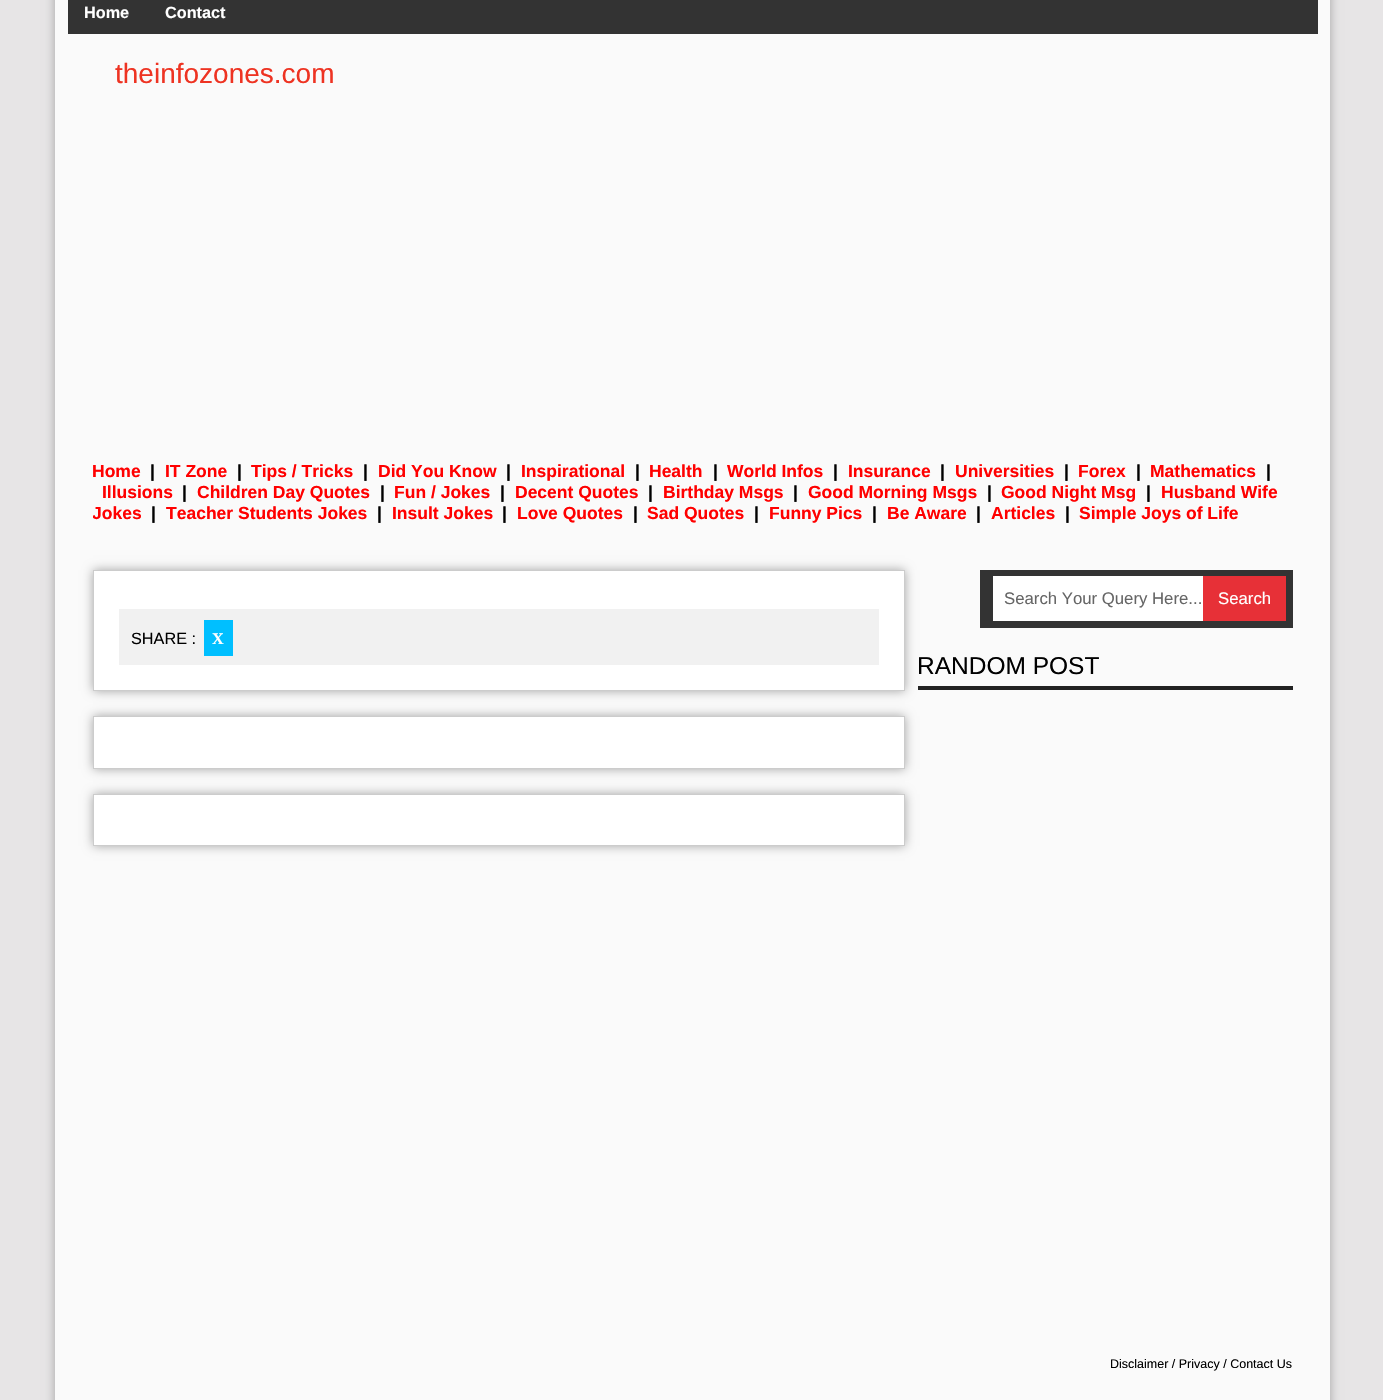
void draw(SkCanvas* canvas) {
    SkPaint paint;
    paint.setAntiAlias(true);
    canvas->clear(0xFFE7E5E6);
    paint.setColor(0xFFA3A3A3);
    paint.setMaskFilter(SkMaskFilter::MakeBlur(kNormal_SkBlurStyle, 5));
    canvas->drawRect(SkRect::MakeXYWH(55, -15, 1275, 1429), paint);
    paint.setMaskFilter(nullptr);
    paint.setColor(0xFFFAFAFA);
    canvas->drawRect(SkRect::MakeXYWH(55, 0, 1275, 1400), paint);
    paint.setColor(0xFF333333);
    canvas->drawRect(SkRect::MakeXYWH(68, 0, 1250, 34), paint);
    SkFont font1(fontMgr->matchFamilyStyle("Liberation Sans", SkFontStyle::Bold()), 16.25f);
    font1.setSubpixel(true);
    paint.setColor(0xFFFFFFFF);
    canvas->drawString("Home", 84, 18, font1, paint);
    canvas->drawString("Contact", 165, 18, font1, paint);
    SkFont font2(fontMgr->matchFamilyStyle("Liberation Sans", SkFontStyle::Normal()), 28);
    font2.setSubpixel(true);
    paint.setColor(0xFFEE3322);
    canvas->drawString("theinfozones.com", 115, 83, font2, paint);
    SkFont font3(fontMgr->matchFamilyStyle("Liberation Sans", SkFontStyle::Bold()), 17.5f);
    font3.setSubpixel(true);
    paint.setColor(0xFFFF0000);
    canvas->drawString("Home", 92, 477, font3, paint);
    paint.setColor(0xFF000000);
    canvas->drawString("|", 150, 477, font3, paint);
    paint.setColor(0xFFFF0000);
    canvas->drawString("IT Zone", 165, 477, font3, paint);
    paint.setColor(0xFF000000);
    canvas->drawString("|", 237, 477, font3, paint);
    paint.setColor(0xFFFF0000);
    canvas->drawString("Tips / Tricks", 251, 477, font3, paint);
    paint.setColor(0xFF000000);
    canvas->drawString("|", 363, 477, font3, paint);
    paint.setColor(0xFFFF0000);
    canvas->drawString("Did You Know", 378, 477, font3, paint);
    paint.setColor(0xFF000000);
    canvas->drawString("|", 506, 477, font3, paint);
    paint.setColor(0xFFFF0000);
    canvas->drawString("Inspirational", 521, 477, font3, paint);
    paint.setColor(0xFF000000);
    canvas->drawString("|", 635, 477, font3, paint);
    paint.setColor(0xFFFF0000);
    canvas->drawString("Health", 649, 477, font3, paint);
    paint.setColor(0xFF000000);
    canvas->drawString("|", 713, 477, font3, paint);
    paint.setColor(0xFFFF0000);
    canvas->drawString("World Infos", 727, 477, font3, paint);
    paint.setColor(0xFF000000);
    canvas->drawString("|", 833, 477, font3, paint);
    paint.setColor(0xFFFF0000);
    canvas->drawString("Insurance", 848, 477, font3, paint);
    paint.setColor(0xFF000000);
    canvas->drawString("|", 940, 477, font3, paint);
    paint.setColor(0xFFFF0000);
    canvas->drawString("Universities", 955, 477, font3, paint);
    paint.setColor(0xFF000000);
    canvas->drawString("|", 1064, 477, font3, paint);
    paint.setColor(0xFFFF0000);
    canvas->drawString("Forex", 1078, 477, font3, paint);
    paint.setColor(0xFF000000);
    canvas->drawString("|", 1136, 477, font3, paint);
    paint.setColor(0xFFFF0000);
    canvas->drawString("Mathematics", 1150, 477, font3, paint);
    paint.setColor(0xFF000000);
    canvas->drawString("|", 1266, 477, font3, paint);
    paint.setColor(0xFFFF0000);
    canvas->drawString("Illusions", 102, 498, font3, paint);
    paint.setColor(0xFF000000);
    canvas->drawString("|", 182, 498, font3, paint);
    paint.setColor(0xFFFF0000);
    canvas->drawString("Children Day Quotes", 197, 498, font3, paint);
    paint.setColor(0xFF000000);
    canvas->drawString("|", 380, 498, font3, paint);
    paint.setColor(0xFFFF0000);
    canvas->drawString("Fun / Jokes", 394, 498, font3, paint);
    paint.setColor(0xFF000000);
    canvas->drawString("|", 500, 498, font3, paint);
    paint.setColor(0xFFFF0000);
    canvas->drawString("Decent Quotes", 515, 498, font3, paint);
    paint.setColor(0xFF000000);
    canvas->drawString("|", 648, 498, font3, paint);
    paint.setColor(0xFFFF0000);
    canvas->drawString("Birthday Msgs", 663, 498, font3, paint);
    paint.setColor(0xFF000000);
    canvas->drawString("|", 793, 498, font3, paint);
    paint.setColor(0xFFFF0000);
    canvas->drawString("Good Morning Msgs", 808, 498, font3, paint);
    paint.setColor(0xFF000000);
    canvas->drawString("|", 987, 498, font3, paint);
    paint.setColor(0xFFFF0000);
    canvas->drawString("Good Night Msg", 1001, 498, font3, paint);
    paint.setColor(0xFF000000);
    canvas->drawString("|", 1146, 498, font3, paint);
    paint.setColor(0xFFFF0000);
    canvas->drawString("Husband Wife", 1161, 498, font3, paint);
    canvas->save();
    canvas->clipRect(SkRect::MakeXYWH(93, 461, 1200, 84));
    canvas->drawString("Jokes", 92, 519, font3, paint);
    canvas->restore();
    paint.setColor(0xFF000000);
    canvas->drawString("|", 151, 519, font3, paint);
    paint.setColor(0xFFFF0000);
    canvas->drawString("Teacher Students Jokes", 166, 519, font3, paint);
    paint.setColor(0xFF000000);
    canvas->drawString("|", 377, 519, font3, paint);
    paint.setColor(0xFFFF0000);
    canvas->drawString("Insult Jokes", 392, 519, font3, paint);
    paint.setColor(0xFF000000);
    canvas->drawString("|", 502, 519, font3, paint);
    paint.setColor(0xFFFF0000);
    canvas->drawString("Love Quotes", 517, 519, font3, paint);
    paint.setColor(0xFF000000);
    canvas->drawString("|", 633, 519, font3, paint);
    paint.setColor(0xFFFF0000);
    canvas->drawString("Sad Quotes", 647, 519, font3, paint);
    paint.setColor(0xFF000000);
    canvas->drawString("|", 754, 519, font3, paint);
    paint.setColor(0xFFFF0000);
    canvas->drawString("Funny Pics", 769, 519, font3, paint);
    paint.setColor(0xFF000000);
    canvas->drawString("|", 872, 519, font3, paint);
    paint.setColor(0xFFFF0000);
    canvas->drawString("Be Aware", 887, 519, font3, paint);
    paint.setColor(0xFF000000);
    canvas->drawString("|", 976, 519, font3, paint);
    paint.setColor(0xFFFF0000);
    canvas->drawString("Articles", 991, 519, font3, paint);
    paint.setColor(0xFF000000);
    canvas->drawString("|", 1065, 519, font3, paint);
    paint.setColor(0xFFFF0000);
    canvas->drawString("Simple Joys of Life", 1079, 519, font3, paint);
    paint.setColor(0xFF222222);
    canvas->drawRect(SkRect::MakeXYWH(918, 686, 375, 4), paint);
    paint.setColor(0xFFA3A3A3);
    paint.setMaskFilter(SkMaskFilter::MakeBlur(kNormal_SkBlurStyle, 5));
    canvas->drawRect(SkRect::MakeXYWH(93, 570, 812, 121), paint);
    paint.setMaskFilter(nullptr);
    paint.setColor(0xFFFFFFFF);
    canvas->drawRect(SkRect::MakeXYWH(93.5f, 570.5f, 811, 120), paint);
    paint.setStyle(SkPaint::kStroke_Style);
    paint.setStrokeWidth(1);
    paint.setColor(0xFFCCCCCC);
    canvas->drawRect(SkRect::MakeXYWH(93.5f, 570.5f, 811, 120), paint);
    paint.setStyle(SkPaint::kFill_Style);
    paint.setColor(0xFFF1F1F1);
    canvas->drawRect(SkRect::MakeXYWH(119, 609, 760, 56), paint);
    SkFont font4(fontMgr->matchFamilyStyle("Liberation Sans", SkFontStyle::Normal()), 16.25f);
    font4.setSubpixel(true);
    paint.setColor(0xFF000000);
    canvas->drawString("SHARE :", 131, 644, font4, paint);
    paint.setColor(0xFF00BFFF);
    canvas->drawRect(SkRect::MakeXYWH(204, 620, 29, 36), paint);
    SkFont font5(fontMgr->matchFamilyStyle("Liberation Serif", SkFontStyle::Bold()), 16.25f);
    font5.setSubpixel(true);
    paint.setColor(0xFFFFFFFF);
    canvas->drawString("X", 212, 644, font5, paint);
    paint.setColor(0xFFA3A3A3);
    paint.setMaskFilter(SkMaskFilter::MakeBlur(kNormal_SkBlurStyle, 5));
    canvas->drawRect(SkRect::MakeXYWH(93, 716, 812, 53), paint);
    paint.setMaskFilter(nullptr);
    paint.setColor(0xFFFFFFFF);
    canvas->drawRect(SkRect::MakeXYWH(93.5f, 716.5f, 811, 52), paint);
    paint.setStyle(SkPaint::kStroke_Style);
    paint.setColor(0xFFCCCCCC);
    canvas->drawRect(SkRect::MakeXYWH(93.5f, 716.5f, 811, 52), paint);
    paint.setStyle(SkPaint::kFill_Style);
    paint.setColor(0xFFA3A3A3);
    paint.setMaskFilter(SkMaskFilter::MakeBlur(kNormal_SkBlurStyle, 5));
    canvas->drawRect(SkRect::MakeXYWH(93, 794, 812, 52), paint);
    paint.setMaskFilter(nullptr);
    paint.setColor(0xFFFFFFFF);
    canvas->drawRect(SkRect::MakeXYWH(93.5f, 794.5f, 811, 51), paint);
    paint.setStyle(SkPaint::kStroke_Style);
    paint.setColor(0xFFCCCCCC);
    canvas->drawRect(SkRect::MakeXYWH(93.5f, 794.5f, 811, 51), paint);
    paint.setStyle(SkPaint::kFill_Style);
    paint.setColor(0xFF333333);
    canvas->drawRect(SkRect::MakeXYWH(980, 570, 313, 58), paint);
    paint.setColor(0xFFFFFFFF);
    canvas->drawRect(SkRect::MakeXYWH(993, 576, 210, 45), paint);
    SkFont font6(fontMgr->matchFamilyStyle("Liberation Sans", SkFontStyle::Normal()), 16.75f);
    font6.setSubpixel(true);
    paint.setColor(0xFF666666);
    canvas->drawString("Search Your Query Here...", 1004, 604, font6, paint);
    paint.setColor(0xFFE73037);
    canvas->drawRect(SkRect::MakeXYWH(1203, 576, 83, 45), paint);
    paint.setColor(0xFFFFFFFF);
    canvas->drawString("Search", 1218, 604, font6, paint);
    SkFont font7(fontMgr->matchFamilyStyle("Liberation Sans", SkFontStyle::Normal()), 24.5f);
    font7.setSubpixel(true);
    paint.setColor(0xFF000000);
    canvas->drawString("RANDOM POST", 917, 674, font7, paint);
    SkFont font8(fontMgr->matchFamilyStyle("Liberation Sans", SkFontStyle::Normal()), 12.5f);
    font8.setSubpixel(true);
    canvas->drawString("Disclaimer / Privacy / Contact Us", 1110, 1368, font8, paint);
}
